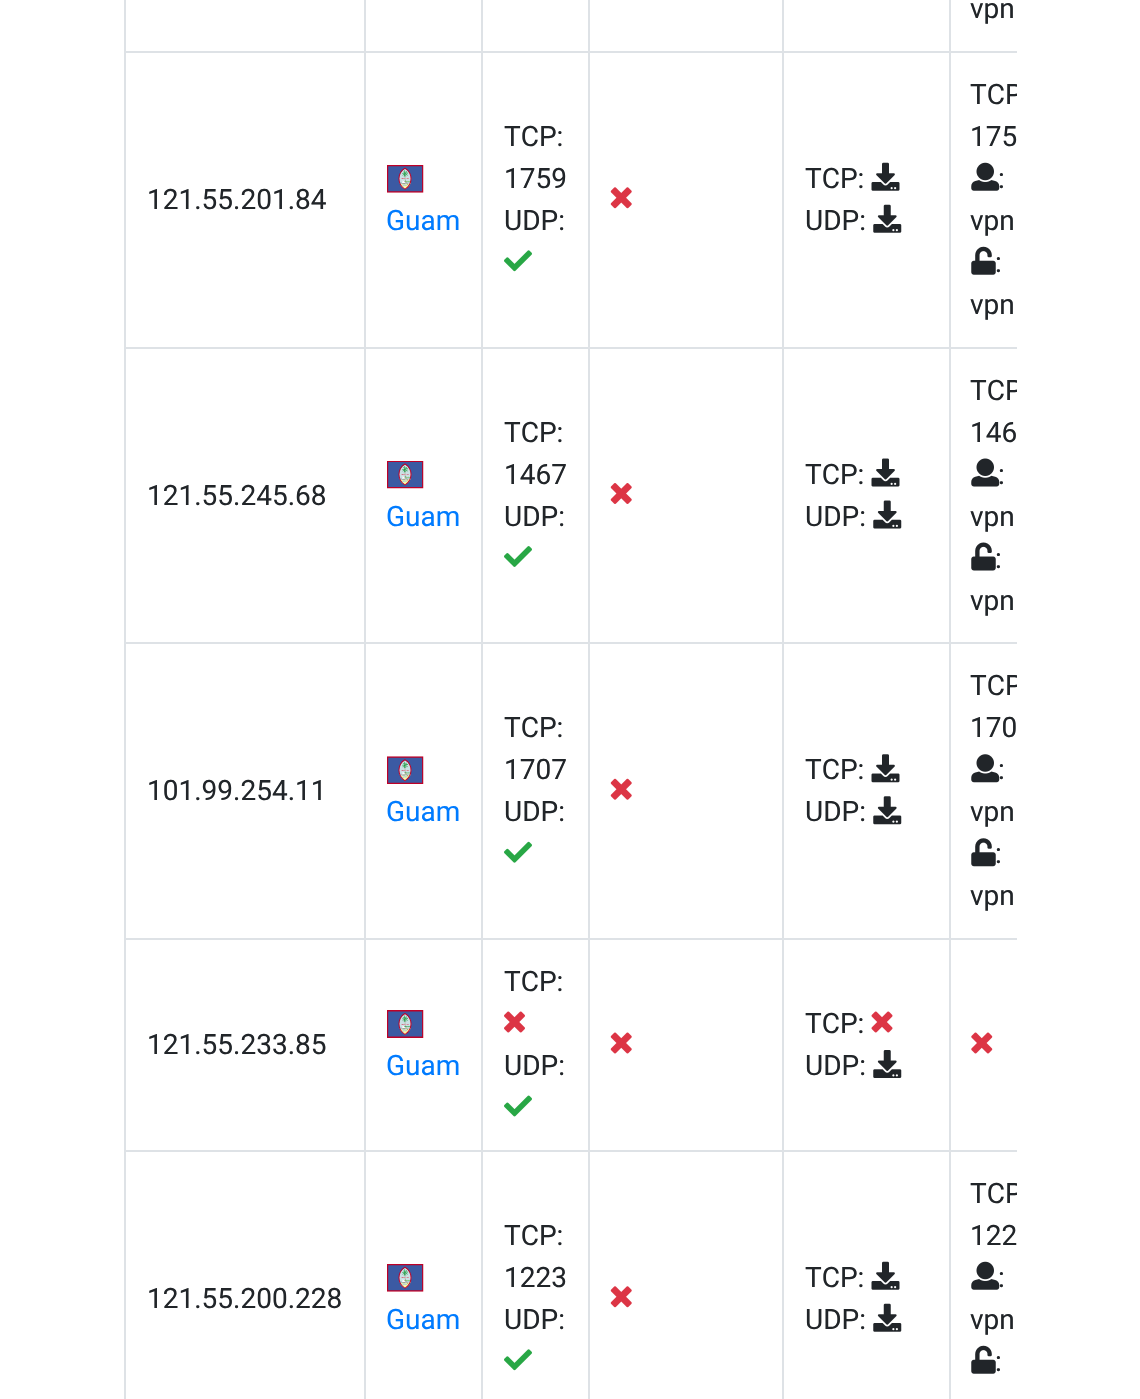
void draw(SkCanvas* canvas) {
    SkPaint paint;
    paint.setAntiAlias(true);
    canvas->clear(0xFFFFFFFF);
    paint.setColor(0xFFDEE2E6);
    canvas->drawRect(SkRect::MakeXYWH(949, 51, 68, 2), paint);
    canvas->drawRect(SkRect::MakeXYWH(949, 347, 68, 2), paint);
    canvas->drawRect(SkRect::MakeXYWH(949, 642, 68, 2), paint);
    canvas->drawRect(SkRect::MakeXYWH(949, 938, 68, 2), paint);
    canvas->drawRect(SkRect::MakeXYWH(949, 1150, 68, 2), paint);
    canvas->drawRect(SkRect::MakeXYWH(949, 1150, 2, 249), paint);
    canvas->drawRect(SkRect::MakeXYWH(782, 1150, 168, 2), paint);
    canvas->drawRect(SkRect::MakeXYWH(949, 938, 2, 214), paint);
    canvas->drawRect(SkRect::MakeXYWH(782, 938, 168, 2), paint);
    canvas->drawRect(SkRect::MakeXYWH(949, 642, 2, 298), paint);
    canvas->drawRect(SkRect::MakeXYWH(782, 642, 168, 2), paint);
    canvas->drawRect(SkRect::MakeXYWH(949, 347, 2, 297), paint);
    canvas->drawRect(SkRect::MakeXYWH(782, 347, 168, 2), paint);
    canvas->drawRect(SkRect::MakeXYWH(949, 51, 2, 297), paint);
    canvas->drawRect(SkRect::MakeXYWH(782, 51, 168, 2), paint);
    canvas->drawRect(SkRect::MakeXYWH(782, 1150, 2, 249), paint);
    canvas->drawRect(SkRect::MakeXYWH(588, 1150, 196, 2), paint);
    canvas->drawRect(SkRect::MakeXYWH(782, 938, 2, 214), paint);
    canvas->drawRect(SkRect::MakeXYWH(588, 938, 196, 2), paint);
    canvas->drawRect(SkRect::MakeXYWH(782, 642, 2, 298), paint);
    canvas->drawRect(SkRect::MakeXYWH(588, 642, 196, 2), paint);
    canvas->drawRect(SkRect::MakeXYWH(782, 347, 2, 297), paint);
    canvas->drawRect(SkRect::MakeXYWH(588, 347, 196, 2), paint);
    canvas->drawRect(SkRect::MakeXYWH(782, 51, 2, 297), paint);
    canvas->drawRect(SkRect::MakeXYWH(588, 51, 196, 2), paint);
    canvas->drawRect(SkRect::MakeXYWH(588, 1150, 2, 249), paint);
    canvas->drawRect(SkRect::MakeXYWH(481, 1150, 109, 2), paint);
    canvas->drawRect(SkRect::MakeXYWH(588, 938, 2, 214), paint);
    canvas->drawRect(SkRect::MakeXYWH(481, 938, 109, 2), paint);
    canvas->drawRect(SkRect::MakeXYWH(588, 642, 2, 298), paint);
    canvas->drawRect(SkRect::MakeXYWH(481, 642, 109, 2), paint);
    canvas->drawRect(SkRect::MakeXYWH(588, 347, 2, 297), paint);
    canvas->drawRect(SkRect::MakeXYWH(481, 347, 109, 2), paint);
    canvas->drawRect(SkRect::MakeXYWH(588, 51, 2, 297), paint);
    canvas->drawRect(SkRect::MakeXYWH(481, 51, 109, 2), paint);
    canvas->drawRect(SkRect::MakeXYWH(481, 1150, 2, 249), paint);
    canvas->drawRect(SkRect::MakeXYWH(364, 1150, 119, 2), paint);
    canvas->drawRect(SkRect::MakeXYWH(481, 938, 2, 214), paint);
    canvas->drawRect(SkRect::MakeXYWH(364, 938, 119, 2), paint);
    canvas->drawRect(SkRect::MakeXYWH(481, 642, 2, 298), paint);
    canvas->drawRect(SkRect::MakeXYWH(364, 642, 119, 2), paint);
    canvas->drawRect(SkRect::MakeXYWH(481, 347, 2, 297), paint);
    canvas->drawRect(SkRect::MakeXYWH(364, 347, 119, 2), paint);
    canvas->drawRect(SkRect::MakeXYWH(481, 51, 2, 297), paint);
    canvas->drawRect(SkRect::MakeXYWH(364, 51, 119, 2), paint);
    canvas->drawRect(SkRect::MakeXYWH(364, 1150, 2, 249), paint);
    canvas->drawRect(SkRect::MakeXYWH(124, 1150, 242, 2), paint);
    canvas->drawRect(SkRect::MakeXYWH(364, 938, 2, 214), paint);
    canvas->drawRect(SkRect::MakeXYWH(124, 938, 242, 2), paint);
    canvas->drawRect(SkRect::MakeXYWH(364, 642, 2, 298), paint);
    canvas->drawRect(SkRect::MakeXYWH(124, 642, 242, 2), paint);
    canvas->drawRect(SkRect::MakeXYWH(364, 347, 2, 297), paint);
    canvas->drawRect(SkRect::MakeXYWH(124, 347, 242, 2), paint);
    canvas->drawRect(SkRect::MakeXYWH(364, 51, 2, 297), paint);
    canvas->drawRect(SkRect::MakeXYWH(124, 51, 242, 2), paint);
    canvas->drawRect(SkRect::MakeXYWH(364, 0, 2, 53), paint);
    canvas->drawRect(SkRect::MakeXYWH(481, 0, 2, 53), paint);
    canvas->drawRect(SkRect::MakeXYWH(588, 0, 2, 53), paint);
    canvas->drawRect(SkRect::MakeXYWH(782, 0, 2, 53), paint);
    canvas->drawRect(SkRect::MakeXYWH(949, 0, 2, 53), paint);
    SkFont font1(fontMgr->matchFamilyStyle("Roboto", SkFontStyle::Normal()), 28);
    font1.setSubpixel(true);
    paint.setColor(0xFF212529);
    canvas->drawString("vpn", 970, 18, font1, paint);
    paint.setColor(0xFFDEE2E6);
    canvas->drawRect(SkRect::MakeXYWH(124, 1150, 2, 249), paint);
    canvas->drawRect(SkRect::MakeXYWH(124, 938, 2, 214), paint);
    canvas->drawRect(SkRect::MakeXYWH(124, 642, 2, 298), paint);
    canvas->drawRect(SkRect::MakeXYWH(124, 347, 2, 297), paint);
    canvas->drawRect(SkRect::MakeXYWH(124, 0, 2, 348), paint);
    paint.setColor(0xFF212529);
    canvas->drawString("121.55.201.84", 147, 209, font1, paint);
    canvas->drawString("TCP:", 504, 146, font1, paint);
    canvas->drawString("1759", 504, 188, font1, paint);
    canvas->drawString("UDP:", 504, 230, font1, paint);
    canvas->drawImageRect(SkImages::DeferredFromEncodedData(SkData::MakeFromFileName("img1.png")), SkRect::MakeXYWH(504, 250, 28, 22), SkSamplingOptions());
    canvas->drawImageRect(SkImages::DeferredFromEncodedData(SkData::MakeFromFileName("img2.png")), SkRect::MakeXYWH(610, 187, 22, 22), SkSamplingOptions());
    canvas->drawString("TCP:", 805, 188, font1, paint);
    canvas->drawImageRect(SkImages::DeferredFromEncodedData(SkData::MakeFromFileName("img3.png")), SkRect::MakeXYWH(871, 162, 29, 29), SkSamplingOptions());
    canvas->drawString("UDP:", 805, 230, font1, paint);
    canvas->drawImageRect(SkImages::DeferredFromEncodedData(SkData::MakeFromFileName("img4.png")), SkRect::MakeXYWH(873, 204, 29, 29), SkSamplingOptions());
    canvas->save();
    canvas->clipRect(SkRect::MakeXYWH(124, 0, 893, 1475));
    canvas->drawString("TCP", 970, 104, font1, paint);
    canvas->restore();
    canvas->drawString("175", 970, 146, font1, paint);
    canvas->drawImageRect(SkImages::DeferredFromEncodedData(SkData::MakeFromFileName("img5.png")), SkRect::MakeXYWH(971, 162, 29, 29), SkSamplingOptions());
    canvas->drawString(":", 998, 188, font1, paint);
    canvas->drawString("vpn", 970, 230, font1, paint);
    canvas->drawImageRect(SkImages::DeferredFromEncodedData(SkData::MakeFromFileName("img6.png")), SkRect::MakeXYWH(971, 246, 25, 29), SkSamplingOptions());
    canvas->drawString(":", 995, 272, font1, paint);
    canvas->drawString("vpn", 970, 314, font1, paint);
    canvas->drawImageRect(SkImages::DeferredFromEncodedData(SkData::MakeFromFileName("img7.png")), SkRect::MakeXYWH(387, 165, 37, 28), SkSamplingOptions());
    paint.setColor(0xFF007BFF);
    canvas->drawString("Guam", 386, 230, font1, paint);
    paint.setColor(0xFF212529);
    canvas->drawString("121.55.245.68", 147, 505, font1, paint);
    canvas->drawString("TCP:", 504, 442, font1, paint);
    canvas->drawString("1467", 504, 484, font1, paint);
    canvas->drawString("UDP:", 504, 526, font1, paint);
    canvas->drawImageRect(SkImages::DeferredFromEncodedData(SkData::MakeFromFileName("img8.png")), SkRect::MakeXYWH(504, 546, 28, 21), SkSamplingOptions());
    canvas->drawImageRect(SkImages::DeferredFromEncodedData(SkData::MakeFromFileName("img9.png")), SkRect::MakeXYWH(610, 483, 22, 21), SkSamplingOptions());
    canvas->drawString("TCP:", 805, 484, font1, paint);
    canvas->drawImageRect(SkImages::DeferredFromEncodedData(SkData::MakeFromFileName("img10.png")), SkRect::MakeXYWH(871, 458, 29, 29), SkSamplingOptions());
    canvas->drawString("UDP:", 805, 526, font1, paint);
    canvas->drawImageRect(SkImages::DeferredFromEncodedData(SkData::MakeFromFileName("img11.png")), SkRect::MakeXYWH(873, 500, 29, 29), SkSamplingOptions());
    canvas->save();
    canvas->clipRect(SkRect::MakeXYWH(124, 0, 893, 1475));
    canvas->drawString("TCP", 970, 400, font1, paint);
    canvas->restore();
    canvas->drawString("146", 970, 442, font1, paint);
    canvas->drawImageRect(SkImages::DeferredFromEncodedData(SkData::MakeFromFileName("img12.png")), SkRect::MakeXYWH(971, 458, 29, 29), SkSamplingOptions());
    canvas->drawString(":", 998, 484, font1, paint);
    canvas->drawString("vpn", 970, 526, font1, paint);
    canvas->drawImageRect(SkImages::DeferredFromEncodedData(SkData::MakeFromFileName("img13.png")), SkRect::MakeXYWH(971, 542, 25, 29), SkSamplingOptions());
    canvas->drawString(":", 995, 568, font1, paint);
    canvas->drawString("vpn", 970, 610, font1, paint);
    canvas->drawImageRect(SkImages::DeferredFromEncodedData(SkData::MakeFromFileName("img14.png")), SkRect::MakeXYWH(387, 461, 37, 28), SkSamplingOptions());
    paint.setColor(0xFF007BFF);
    canvas->drawString("Guam", 386, 526, font1, paint);
    paint.setColor(0xFF212529);
    canvas->drawString("101.99.254.11", 147, 800, font1, paint);
    canvas->drawString("TCP:", 504, 737, font1, paint);
    canvas->drawString("1707", 504, 779, font1, paint);
    canvas->drawString("UDP:", 504, 821, font1, paint);
    canvas->drawImageRect(SkImages::DeferredFromEncodedData(SkData::MakeFromFileName("img15.png")), SkRect::MakeXYWH(504, 841, 28, 22), SkSamplingOptions());
    canvas->drawImageRect(SkImages::DeferredFromEncodedData(SkData::MakeFromFileName("img16.png")), SkRect::MakeXYWH(610, 778, 22, 22), SkSamplingOptions());
    canvas->drawString("TCP:", 805, 779, font1, paint);
    canvas->drawImageRect(SkImages::DeferredFromEncodedData(SkData::MakeFromFileName("img17.png")), SkRect::MakeXYWH(871, 754, 29, 29), SkSamplingOptions());
    canvas->drawString("UDP:", 805, 821, font1, paint);
    canvas->drawImageRect(SkImages::DeferredFromEncodedData(SkData::MakeFromFileName("img18.png")), SkRect::MakeXYWH(873, 796, 29, 29), SkSamplingOptions());
    canvas->save();
    canvas->clipRect(SkRect::MakeXYWH(124, 0, 893, 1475));
    canvas->drawString("TCP", 970, 695, font1, paint);
    canvas->restore();
    canvas->drawString("170", 970, 737, font1, paint);
    canvas->drawImageRect(SkImages::DeferredFromEncodedData(SkData::MakeFromFileName("img19.png")), SkRect::MakeXYWH(971, 754, 29, 29), SkSamplingOptions());
    canvas->drawString(":", 998, 779, font1, paint);
    canvas->drawString("vpn", 970, 821, font1, paint);
    canvas->drawImageRect(SkImages::DeferredFromEncodedData(SkData::MakeFromFileName("img20.png")), SkRect::MakeXYWH(971, 838, 25, 29), SkSamplingOptions());
    canvas->drawString(":", 995, 863, font1, paint);
    canvas->drawString("vpn", 970, 905, font1, paint);
    canvas->drawImageRect(SkImages::DeferredFromEncodedData(SkData::MakeFromFileName("img21.png")), SkRect::MakeXYWH(387, 756, 37, 28), SkSamplingOptions());
    paint.setColor(0xFF007BFF);
    canvas->drawString("Guam", 386, 821, font1, paint);
    paint.setColor(0xFF212529);
    canvas->drawString("121.55.233.85", 147, 1054, font1, paint);
    canvas->drawString("TCP:", 504, 991, font1, paint);
    canvas->drawImageRect(SkImages::DeferredFromEncodedData(SkData::MakeFromFileName("img22.png")), SkRect::MakeXYWH(504, 1011, 21, 22), SkSamplingOptions());
    canvas->drawString("UDP:", 504, 1075, font1, paint);
    canvas->drawImageRect(SkImages::DeferredFromEncodedData(SkData::MakeFromFileName("img23.png")), SkRect::MakeXYWH(504, 1095, 28, 22), SkSamplingOptions());
    canvas->drawImageRect(SkImages::DeferredFromEncodedData(SkData::MakeFromFileName("img24.png")), SkRect::MakeXYWH(610, 1032, 22, 22), SkSamplingOptions());
    canvas->drawString("TCP:", 805, 1033, font1, paint);
    canvas->drawImageRect(SkImages::DeferredFromEncodedData(SkData::MakeFromFileName("img25.png")), SkRect::MakeXYWH(871, 1011, 22, 22), SkSamplingOptions());
    canvas->drawString("UDP:", 805, 1075, font1, paint);
    canvas->drawImageRect(SkImages::DeferredFromEncodedData(SkData::MakeFromFileName("img26.png")), SkRect::MakeXYWH(873, 1050, 29, 28), SkSamplingOptions());
    canvas->drawImageRect(SkImages::DeferredFromEncodedData(SkData::MakeFromFileName("img27.png")), SkRect::MakeXYWH(971, 1032, 22, 22), SkSamplingOptions());
    canvas->drawImageRect(SkImages::DeferredFromEncodedData(SkData::MakeFromFileName("img28.png")), SkRect::MakeXYWH(387, 1010, 37, 28), SkSamplingOptions());
    paint.setColor(0xFF007BFF);
    canvas->drawString("Guam", 386, 1075, font1, paint);
    paint.setColor(0xFF212529);
    canvas->drawString("121.55.200.228", 147, 1308, font1, paint);
    canvas->drawString("TCP:", 504, 1245, font1, paint);
    canvas->drawString("1223", 504, 1287, font1, paint);
    canvas->drawString("UDP:", 504, 1329, font1, paint);
    canvas->drawImageRect(SkImages::DeferredFromEncodedData(SkData::MakeFromFileName("img1.png")), SkRect::MakeXYWH(504, 1349, 28, 22), SkSamplingOptions());
    canvas->drawImageRect(SkImages::DeferredFromEncodedData(SkData::MakeFromFileName("img2.png")), SkRect::MakeXYWH(610, 1286, 22, 22), SkSamplingOptions());
    canvas->drawString("TCP:", 805, 1287, font1, paint);
    canvas->drawImageRect(SkImages::DeferredFromEncodedData(SkData::MakeFromFileName("img3.png")), SkRect::MakeXYWH(871, 1261, 29, 29), SkSamplingOptions());
    canvas->drawString("UDP:", 805, 1329, font1, paint);
    canvas->drawImageRect(SkImages::DeferredFromEncodedData(SkData::MakeFromFileName("img4.png")), SkRect::MakeXYWH(873, 1303, 29, 29), SkSamplingOptions());
    canvas->save();
    canvas->clipRect(SkRect::MakeXYWH(124, 0, 893, 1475));
    canvas->drawString("TCP", 970, 1203, font1, paint);
    canvas->restore();
    canvas->drawString("122", 970, 1245, font1, paint);
    canvas->drawImageRect(SkImages::DeferredFromEncodedData(SkData::MakeFromFileName("img5.png")), SkRect::MakeXYWH(971, 1261, 29, 29), SkSamplingOptions());
    canvas->drawString(":", 998, 1287, font1, paint);
    canvas->drawString("vpn", 970, 1329, font1, paint);
    canvas->drawImageRect(SkImages::DeferredFromEncodedData(SkData::MakeFromFileName("img6.png")), SkRect::MakeXYWH(971, 1345, 25, 29), SkSamplingOptions());
    canvas->drawString(":", 995, 1371, font1, paint);
    canvas->drawImageRect(SkImages::DeferredFromEncodedData(SkData::MakeFromFileName("img7.png")), SkRect::MakeXYWH(387, 1264, 37, 28), SkSamplingOptions());
    paint.setColor(0xFF007BFF);
    canvas->drawString("Guam", 386, 1329, font1, paint);
}
